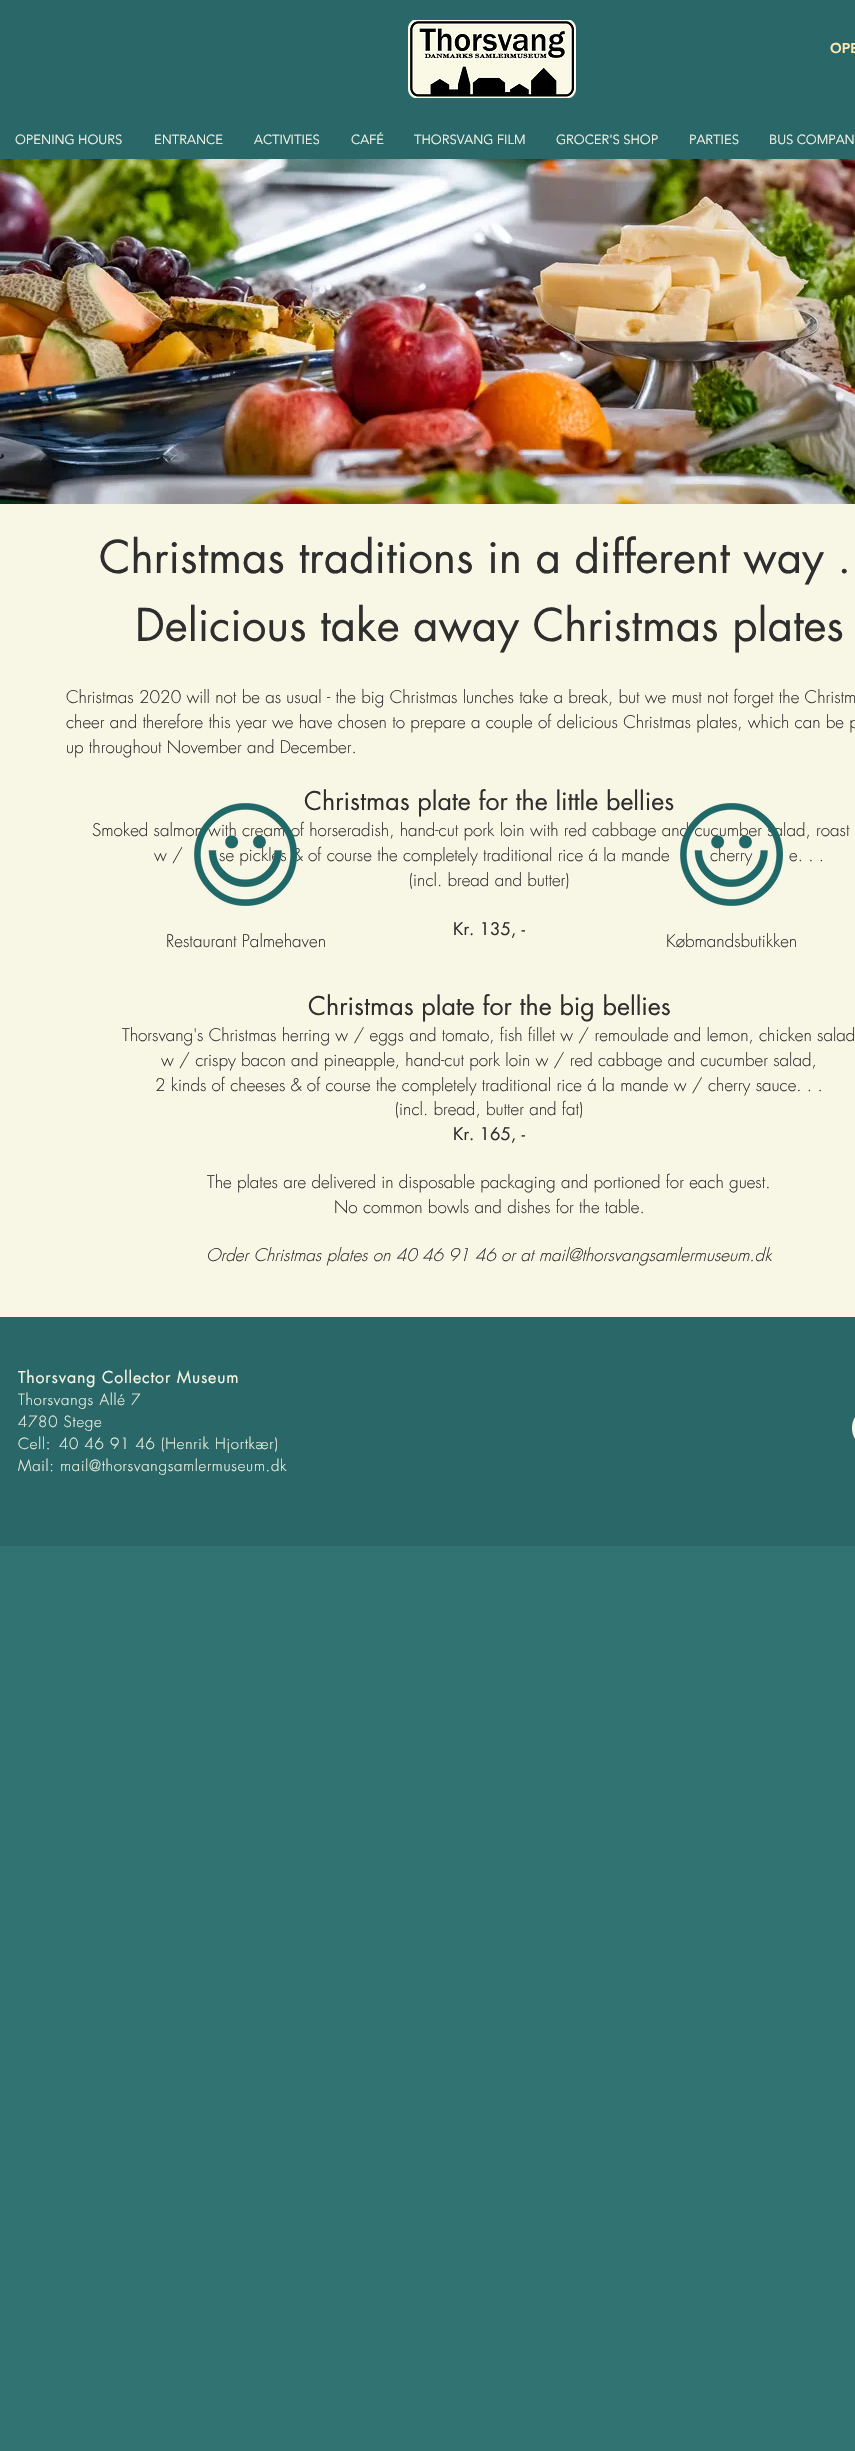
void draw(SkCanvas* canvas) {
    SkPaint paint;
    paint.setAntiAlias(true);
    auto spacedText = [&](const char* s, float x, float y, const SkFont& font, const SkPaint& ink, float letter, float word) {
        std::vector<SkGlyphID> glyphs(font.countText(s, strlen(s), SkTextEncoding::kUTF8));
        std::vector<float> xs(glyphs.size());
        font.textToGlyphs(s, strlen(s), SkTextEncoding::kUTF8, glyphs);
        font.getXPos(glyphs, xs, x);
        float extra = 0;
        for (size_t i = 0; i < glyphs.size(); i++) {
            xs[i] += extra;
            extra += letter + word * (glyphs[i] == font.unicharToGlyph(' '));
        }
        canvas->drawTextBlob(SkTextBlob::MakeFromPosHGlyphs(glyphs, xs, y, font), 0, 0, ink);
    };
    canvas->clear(0xFF317273);
    paint.setColor(0xFF2A6769);
    canvas->drawRect(SkRect::MakeXYWH(0, 0, 855, 159), paint);
    canvas->drawImageRect(SkImages::DeferredFromEncodedData(SkData::MakeFromFileName("img1.png")), SkRect::MakeXYWH(408, 20, 168, 78), SkSamplingOptions());
    SkFont font1(fontMgr->matchFamilyStyle("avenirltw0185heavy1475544", SkFontStyle(900, SkFontStyle::kNormal_Width, SkFontStyle::kUpright_Slant)), 14);
    font1.setSubpixel(true);
    paint.setColor(0xFFFDE9B2);
    canvas->drawString("OPE", 830, 53, font1, paint);
    SkFont font2(fontMgr->matchFamilyStyle("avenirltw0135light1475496", SkFontStyle(300, SkFontStyle::kNormal_Width, SkFontStyle::kUpright_Slant)), 13);
    font2.setSubpixel(true);
    paint.setColor(0xFFFCFAEB);
    canvas->drawString("OPENING HOURS", 15, 144, font2, paint);
    canvas->drawString("ENTRANCE", 154, 144, font2, paint);
    canvas->drawString("ACTIVITIES", 254, 144, font2, paint);
    canvas->drawString("CAFÉ", 351, 144, font2, paint);
    canvas->drawString("THORSVANG FILM", 414, 144, font2, paint);
    canvas->drawString("GROCER'S SHOP", 556, 144, font2, paint);
    canvas->drawString("PARTIES", 689, 144, font2, paint);
    canvas->drawString("BUS COMPAN", 769, 144, font2, paint);
    paint.setColor(0xFFF8F6E4);
    canvas->drawRect(SkRect::MakeXYWH(0, 504, 855, 813), paint);
    canvas->drawImageRect(SkImages::DeferredFromEncodedData(SkData::MakeFromFileName("img2.png")), SkRect::MakeXYWH(0, 159, 855, 345), SkSamplingOptions());
    SkFont font3(fontMgr->matchFamilyStyle("futura", SkFontStyle::Normal()), 44);
    font3.setSubpixel(true);
    paint.setColor(0xFF2F2E2E);
    canvas->drawString("Christmas traditions in a different way .", 99, 573, font3, paint);
    canvas->drawString("Delicious take away Christmas plates", 135, 641, font3, paint);
    SkFont font4(fontMgr->matchFamilyStyle("futura", SkFontStyle(300, SkFontStyle::kNormal_Width, SkFontStyle::kUpright_Slant)), 17);
    font4.setSubpixel(true);
    canvas->drawString("Christmas 2020 will not be as usual - the big Christmas lunches take a break, but we must not forget the Christm", 66, 703, font4, paint);
    canvas->drawString("cheer and therefore this year we have chosen to prepare a couple of delicious Christmas plates, which can be p", 66, 728, font4, paint);
    canvas->drawString("up throughout November and December.", 66, 753, font4, paint);
    SkFont font5(fontMgr->matchFamilyStyle("futura", SkFontStyle::Normal()), 25);
    font5.setSubpixel(true);
    canvas->drawString("Christmas plate for the little bellies", 304, 810, font5, paint);
    canvas->drawString("Smoked salmon with cream of horseradish, hand-cut pork loin with red cabbage and cucumber salad, roast", 92, 836, font4, paint);
    canvas->drawString("w /", 154, 861, font4, paint);
    canvas->drawString("se pickles & of course the completely traditional rice á la mande", 219, 861, font4, paint);
    canvas->drawString("cherry", 710, 861, font4, paint);
    canvas->drawString("e. . .", 789, 861, font4, paint);
    canvas->drawString("(incl. bread and butter)", 409, 886, font4, paint);
    SkFont font6(fontMgr->matchFamilyStyle("futura", SkFontStyle::Normal()), 17);
    font6.setSubpixel(true);
    canvas->drawString("Kr. 135, -", 453, 935, font6, paint);
    canvas->drawString("Christmas plate for the big bellies", 308, 1015, font5, paint);
    canvas->drawString("Thorsvang's Christmas herring w / eggs and tomato, fish fillet w / remoulade and lemon, chicken salad", 122, 1041, font4, paint);
    canvas->drawString("w / crispy bacon and pineapple, hand-cut pork loin w / red cabbage and cucumber salad,", 161, 1066, font4, paint);
    canvas->drawString("2 kinds of cheeses & of course the completely traditional rice á la mande w / cherry sauce. . .", 155, 1091, font4, paint);
    canvas->drawString("(incl. bread, butter and fat)", 395, 1115, font4, paint);
    canvas->drawString("Kr. 165, -", 453, 1140, font6, paint);
    canvas->drawString("The plates are delivered in disposable packaging and portioned for each guest.", 207, 1188, font4, paint);
    canvas->drawString("No common bowls and dishes for the table.", 334, 1213, font4, paint);
    SkFont font7(fontMgr->matchFamilyStyle("futura", SkFontStyle(300, SkFontStyle::kNormal_Width, SkFontStyle::kItalic_Slant)), 17);
    font7.setSubpixel(true);
    canvas->drawString("Order Christmas plates on 40 46 91 46 or at mail@thorsvangsamlermuseum.dk", 206, 1261, font7, paint);
    canvas->drawImageRect(SkImages::DeferredFromEncodedData(SkData::MakeFromFileName("img3.png")), SkRect::MakeXYWH(194, 803, 103, 103), SkSamplingOptions());
    canvas->drawImageRect(SkImages::DeferredFromEncodedData(SkData::MakeFromFileName("img4.png")), SkRect::MakeXYWH(680, 803, 103, 103), SkSamplingOptions());
    canvas->drawString("Restaurant Palmehaven", 166, 947, font4, paint);
    canvas->drawString("Købmandsbutikken", 666, 947, font4, paint);
    paint.setColor(0xFF2A6769);
    canvas->drawRect(SkRect::MakeXYWH(0, 1317, 855, 229), paint);
    SkFont font8(fontMgr->matchFamilyStyle("futura", SkFontStyle::Normal()), 16);
    font8.setSubpixel(true);
    paint.setColor(0xFFF8F6E4);
    spacedText("Thorsvang Collector Museum", 18, 1383, font8, paint, 0.8f, 0);
    SkFont font9(fontMgr->matchFamilyStyle("futura", SkFontStyle(300, SkFontStyle::kNormal_Width, SkFontStyle::kUpright_Slant)), 15);
    font9.setSubpixel(true);
    spacedText("Thorsvangs Allé 7", 18, 1405, font9, paint, 0.75f, 0);
    spacedText("4780 Stege", 18, 1427, font9, paint, 0.75f, 0);
    spacedText("Cell:", 18, 1449, font9, paint, 0.75f, 0);
    spacedText("40 46 91 46 (Henrik Hjortkær)", 59, 1449, font9, paint, 0.75f, 0);
    spacedText("Mail: mail@thorsvangsamlermuseum.dk", 18, 1471, font9, paint, 0.75f, 0);
    canvas->drawImageRect(SkImages::DeferredFromEncodedData(SkData::MakeFromFileName("img5.png")), SkRect::MakeXYWH(852, 1417, 3, 22), SkSamplingOptions());
}
